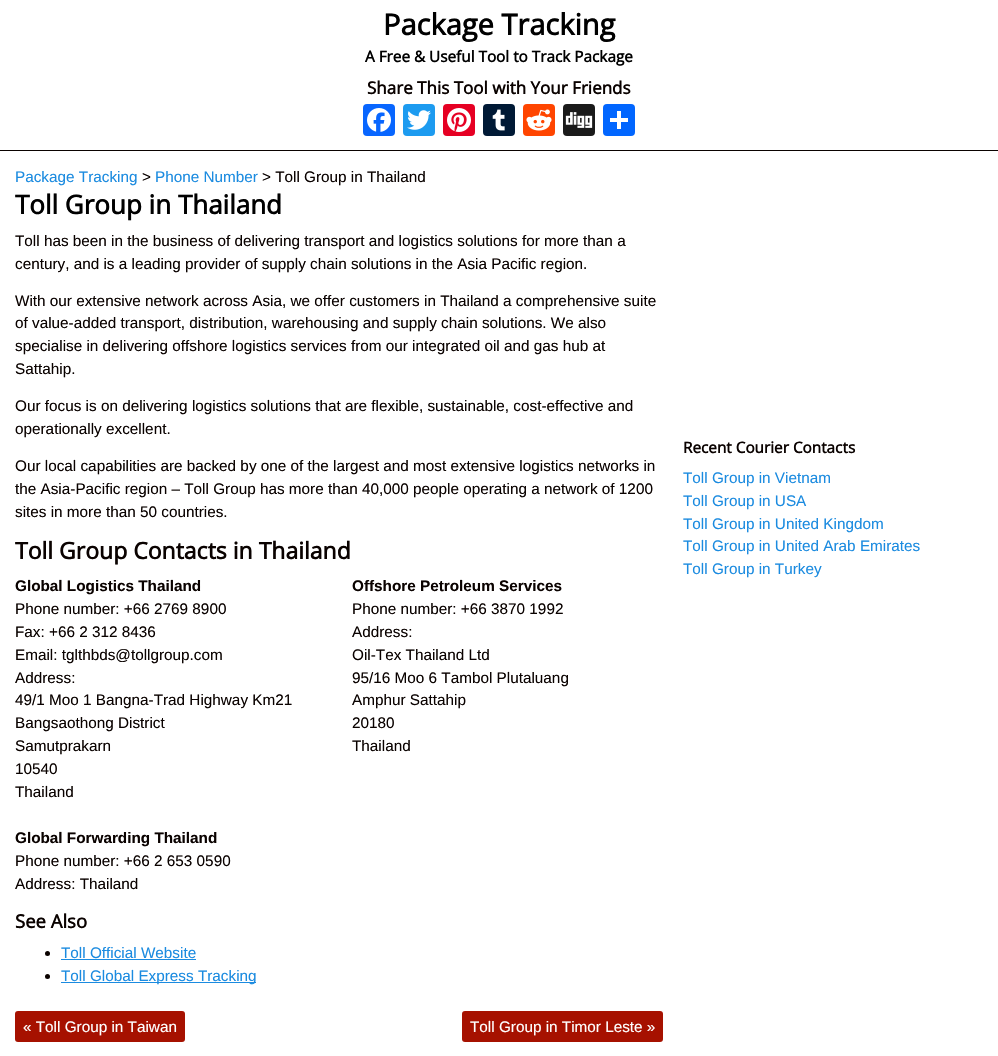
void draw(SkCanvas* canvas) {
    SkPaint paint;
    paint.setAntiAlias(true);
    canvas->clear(0xFFFFFFFF);
    paint.setColor(0xFF0A0200);
    canvas->drawRect(SkRect::MakeXYWH(0, 150, 998, 1), paint);
    SkFont font1(fontMgr->matchFamilyStyle("Open Sans", SkFontStyle::Bold()), 29);
    font1.setSubpixel(true);
    paint.setColor(0xFF000000);
    canvas->drawString("Package Tracking", 383, 35, font1, paint);
    SkFont font2(fontMgr->matchFamilyStyle("Open Sans", SkFontStyle::Bold()), 15.3f);
    font2.setSubpixel(true);
    canvas->drawString("A Free & Useful Tool to Track Package", 365, 62, font2, paint);
    SkFont font3(fontMgr->matchFamilyStyle("Open Sans", SkFontStyle::Bold()), 17);
    font3.setSubpixel(true);
    paint.setColor(0xFF0A0200);
    canvas->drawString("Share This Tool with Your Friends", 367, 94, font3, paint);
    paint.setColor(0xFF0866FF);
    canvas->drawRoundRect(SkRect::MakeXYWH(363, 104, 32, 32), 4, 4, paint);
    canvas->drawImageRect(SkImages::DeferredFromEncodedData(SkData::MakeFromFileName("img1.png")), SkRect::MakeXYWH(367, 108, 24, 24), SkSamplingOptions());
    paint.setColor(0xFF1D9BF0);
    canvas->drawRoundRect(SkRect::MakeXYWH(403, 104, 32, 32), 4, 4, paint);
    canvas->drawImageRect(SkImages::DeferredFromEncodedData(SkData::MakeFromFileName("img2.png")), SkRect::MakeXYWH(407, 110, 24, 20), SkSamplingOptions());
    paint.setColor(0xFFE60023);
    canvas->drawRoundRect(SkRect::MakeXYWH(443, 104, 32, 32), 4, 4, paint);
    canvas->drawImageRect(SkImages::DeferredFromEncodedData(SkData::MakeFromFileName("img3.png")), SkRect::MakeXYWH(447, 108, 24, 24), SkSamplingOptions());
    paint.setColor(0xFF001935);
    canvas->drawRoundRect(SkRect::MakeXYWH(483, 104, 32, 32), 4, 4, paint);
    canvas->drawImageRect(SkImages::DeferredFromEncodedData(SkData::MakeFromFileName("img4.png")), SkRect::MakeXYWH(492, 109, 13, 22), SkSamplingOptions());
    paint.setColor(0xFFFF4500);
    canvas->drawRoundRect(SkRect::MakeXYWH(523, 104, 32, 32), 4, 4, paint);
    canvas->drawImageRect(SkImages::DeferredFromEncodedData(SkData::MakeFromFileName("img5.png")), SkRect::MakeXYWH(526, 109, 26, 22), SkSamplingOptions());
    paint.setColor(0xFF1A1A1A);
    canvas->drawRoundRect(SkRect::MakeXYWH(563, 104, 32, 32), 4, 4, paint);
    canvas->drawImageRect(SkImages::DeferredFromEncodedData(SkData::MakeFromFileName("img6.png")), SkRect::MakeXYWH(565, 112, 28, 16), SkSamplingOptions());
    paint.setColor(0xFF0166FF);
    canvas->drawRoundRect(SkRect::MakeXYWH(603, 104, 32, 32), 4, 4, paint);
    paint.setColor(0xFFFFFFFF);
    canvas->drawRect(SkRect::MakeXYWH(617, 111, 4, 18), paint);
    canvas->drawRect(SkRect::MakeXYWH(610, 118, 18, 4), paint);
    SkFont font4(fontMgr->matchFamilyStyle("Liberation Sans", SkFontStyle::Normal()), 15.3f);
    font4.setSubpixel(true);
    paint.setColor(0xFF1B8BE0);
    canvas->drawString("Package Tracking", 15, 182, font4, paint);
    paint.setColor(0xFF0A0200);
    canvas->drawString(">", 142, 182, font4, paint);
    paint.setColor(0xFF1B8BE0);
    canvas->drawString("Phone Number", 155, 182, font4, paint);
    paint.setColor(0xFF0A0200);
    canvas->drawString("> Toll Group in Thailand", 262, 182, font4, paint);
    SkFont font5(fontMgr->matchFamilyStyle("Open Sans", SkFontStyle::Bold()), 26);
    font5.setSubpixel(true);
    paint.setColor(0xFF000000);
    canvas->drawString("Toll Group in Thailand", 15, 214, font5, paint);
    paint.setColor(0xFF0A0200);
    canvas->drawString("Toll has been in the business of delivering transport and logistics solutions for more than a", 15, 246, font4, paint);
    canvas->drawString("century, and is a leading provider of supply chain solutions in the Asia Pacific region.", 15, 269, font4, paint);
    canvas->drawString("With our extensive network across Asia, we offer customers in Thailand a comprehensive suite", 15, 306, font4, paint);
    canvas->drawString("of value-added transport, distribution, warehousing and supply chain solutions. We also", 15, 328, font4, paint);
    canvas->drawString("specialise in delivering offshore logistics services from our integrated oil and gas hub at", 15, 351, font4, paint);
    canvas->drawString("Sattahip.", 15, 374, font4, paint);
    canvas->drawString("Our focus is on delivering logistics solutions that are flexible, sustainable, cost-effective and", 15, 411, font4, paint);
    canvas->drawString("operationally excellent.", 15, 434, font4, paint);
    canvas->drawString("Our local capabilities are backed by one of the largest and most extensive logistics networks in", 15, 471, font4, paint);
    canvas->drawString("the Asia-Pacific region – Toll Group has more than 40,000 people operating a network of 1200", 15, 494, font4, paint);
    canvas->drawString("sites in more than 50 countries.", 15, 517, font4, paint);
    SkFont font6(fontMgr->matchFamilyStyle("Open Sans", SkFontStyle::Bold()), 23);
    font6.setSubpixel(true);
    canvas->drawString("Toll Group Contacts in Thailand", 15, 559, font6, paint);
    SkFont font7(fontMgr->matchFamilyStyle("Liberation Sans", SkFontStyle::Bold()), 15.3f);
    font7.setSubpixel(true);
    canvas->drawString("Global Logistics Thailand", 15, 591, font7, paint);
    canvas->drawString("Phone number: +66 2769 8900", 15, 614, font4, paint);
    canvas->drawString("Fax: +66 2 312 8436", 15, 637, font4, paint);
    canvas->drawString("Email: tglthbds@tollgroup.com", 15, 660, font4, paint);
    canvas->drawString("Address:", 15, 683, font4, paint);
    canvas->drawString("49/1 Moo 1 Bangna-Trad Highway Km21", 15, 705, font4, paint);
    canvas->drawString("Bangsaothong District", 15, 728, font4, paint);
    canvas->drawString("Samutprakarn", 15, 751, font4, paint);
    canvas->drawString("10540", 15, 774, font4, paint);
    canvas->drawString("Thailand", 15, 797, font4, paint);
    canvas->drawString("Offshore Petroleum Services", 352, 591, font7, paint);
    canvas->drawString("Phone number: +66 3870 1992", 352, 614, font4, paint);
    canvas->drawString("Address:", 352, 637, font4, paint);
    canvas->drawString("Oil-Tex Thailand Ltd", 352, 660, font4, paint);
    canvas->drawString("95/16 Moo 6 Tambol Plutaluang", 352, 683, font4, paint);
    canvas->drawString("Amphur Sattahip", 352, 705, font4, paint);
    canvas->drawString("20180", 352, 728, font4, paint);
    canvas->drawString("Thailand", 352, 751, font4, paint);
    canvas->drawString("Global Forwarding Thailand", 15, 843, font7, paint);
    canvas->drawString("Phone number: +66 2 653 0590", 15, 866, font4, paint);
    canvas->drawString("Address: Thailand", 15, 889, font4, paint);
    SkFont font8(fontMgr->matchFamilyStyle("Open Sans", SkFontStyle::Bold()), 18.5f);
    font8.setSubpixel(true);
    canvas->drawString("See Also", 15, 928, font8, paint);
    canvas->drawCircle(47.5f, 953.5f, 2.5f, paint);
    paint.setColor(0xFF1B8BE0);
    canvas->drawString("Toll Official Website", 61, 958, font4, paint);
    canvas->drawRect(SkRect::MakeXYWH(61, 959, 135, 1), paint);
    paint.setColor(0xFF0A0200);
    canvas->drawCircle(47.5f, 976.5f, 2.5f, paint);
    paint.setColor(0xFF1B8BE0);
    canvas->drawRect(SkRect::MakeXYWH(61, 982, 195, 1), paint);
    canvas->drawString("Toll Global Express Tracking", 61, 981, font4, paint);
    paint.setColor(0xFFA61100);
    canvas->drawRoundRect(SkRect::MakeXYWH(15, 1011, 170, 31), 3, 3, paint);
    paint.setColor(0xFFFFFFFF);
    canvas->drawString("« Toll Group in Taiwan", 23, 1032, font4, paint);
    paint.setColor(0xFFA61100);
    canvas->drawRoundRect(SkRect::MakeXYWH(462, 1011, 201, 31), 3, 3, paint);
    paint.setColor(0xFFFFFFFF);
    canvas->drawString("Toll Group in Timor Leste »", 470, 1032, font4, paint);
    paint.setColor(0xFF0A0200);
    canvas->drawString("Recent Courier Contacts", 683, 453, font2, paint);
    paint.setColor(0xFF1B8BE0);
    canvas->drawString("Toll Group in Vietnam", 683, 483, font4, paint);
    canvas->drawString("Toll Group in USA", 683, 506, font4, paint);
    canvas->drawString("Toll Group in United Kingdom", 683, 529, font4, paint);
    canvas->drawString("Toll Group in United Arab Emirates", 683, 551, font4, paint);
    canvas->drawString("Toll Group in Turkey", 683, 574, font4, paint);
}
